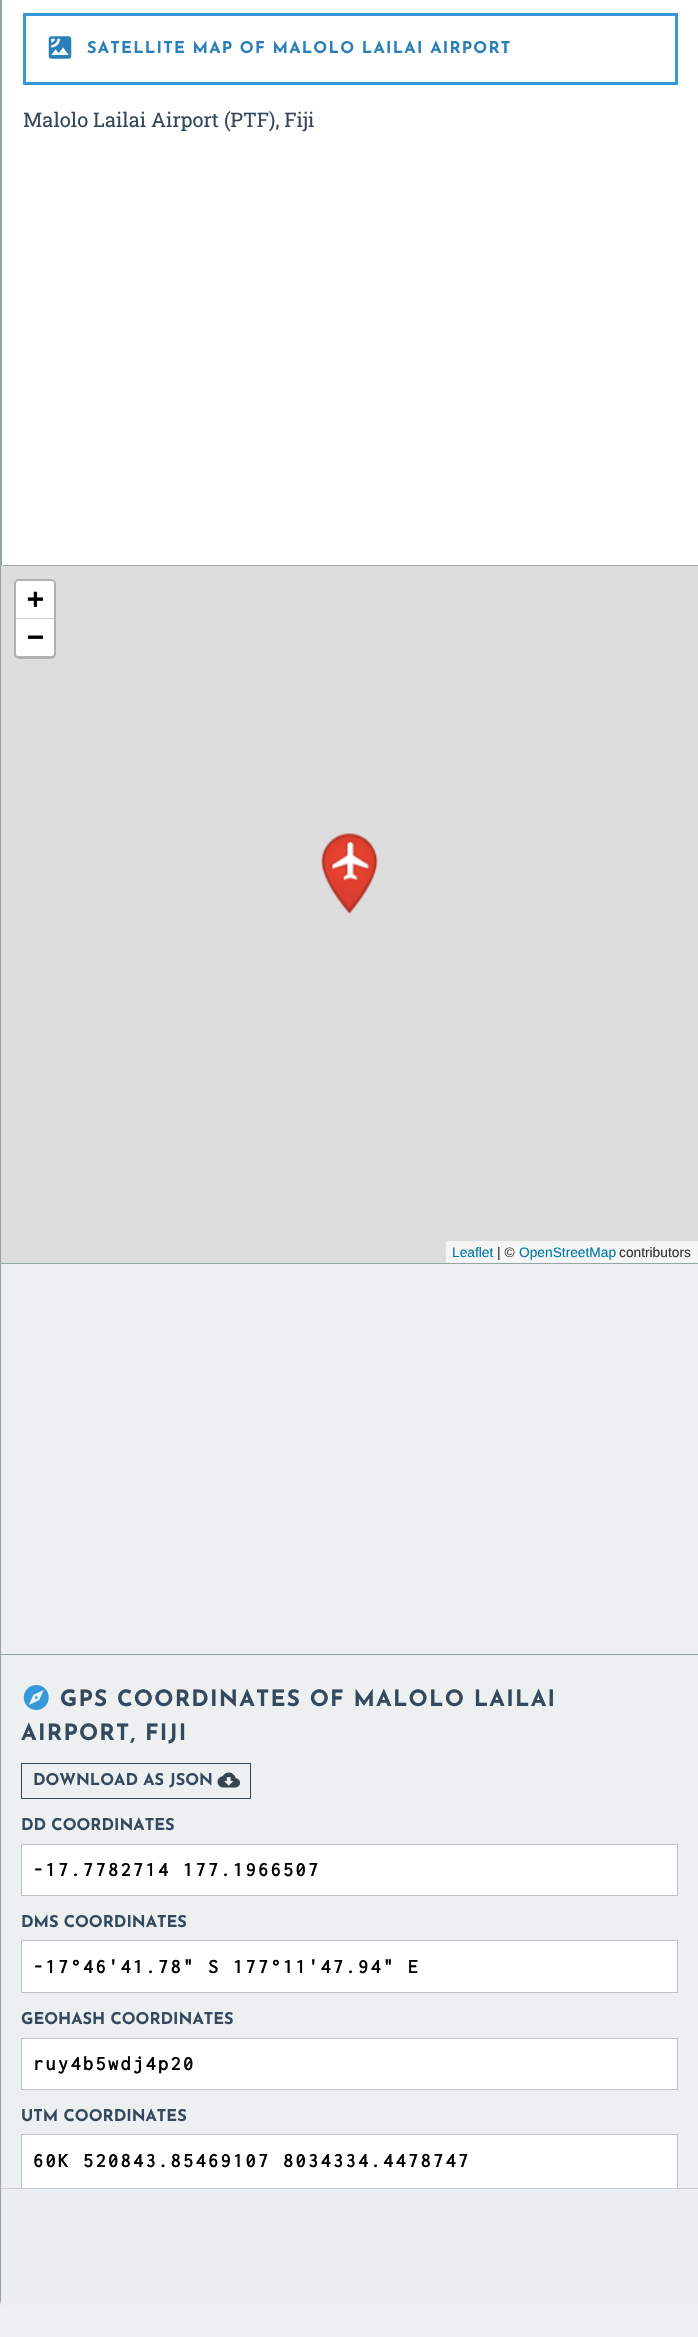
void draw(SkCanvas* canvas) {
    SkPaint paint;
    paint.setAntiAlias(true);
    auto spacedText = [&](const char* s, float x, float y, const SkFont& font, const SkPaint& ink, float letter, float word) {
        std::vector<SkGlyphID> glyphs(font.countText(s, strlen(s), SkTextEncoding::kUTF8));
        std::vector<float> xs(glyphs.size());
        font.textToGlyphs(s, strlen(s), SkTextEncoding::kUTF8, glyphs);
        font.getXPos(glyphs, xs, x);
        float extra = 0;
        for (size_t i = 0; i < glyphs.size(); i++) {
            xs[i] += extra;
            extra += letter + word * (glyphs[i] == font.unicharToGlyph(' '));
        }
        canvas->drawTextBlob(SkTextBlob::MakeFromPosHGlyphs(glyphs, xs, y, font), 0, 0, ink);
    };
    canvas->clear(0xFFECF0F1);
    paint.setColor(0x40000000);
    paint.setMaskFilter(SkMaskFilter::MakeBlur(kNormal_SkBlurStyle, 1));
    canvas->drawRect(SkRect::MakeXYWH(0, -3, 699, 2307), paint);
    paint.setMaskFilter(nullptr);
    paint.setColor(0xFFFAFAFA);
    canvas->drawRect(SkRect::MakeXYWH(2, 0, 1, 566), paint);
    paint.setColor(0xFF95A5A6);
    canvas->drawRect(SkRect::MakeXYWH(0, 0, 1, 2301), paint);
    canvas->drawRect(SkRect::MakeXYWH(1, 0, 1, 566), paint);
    paint.setColor(0xFFFFFFFF);
    canvas->drawRect(SkRect::MakeXYWH(3, 0, 695, 565), paint);
    paint.setColor(0xFF95A5A6);
    canvas->drawRect(SkRect::MakeXYWH(3, 565, 695, 1), paint);
    paint.setStyle(SkPaint::kStroke_Style);
    paint.setStrokeWidth(3);
    paint.setColor(0xFF3498DB);
    canvas->drawRect(SkRect::MakeXYWH(24.5f, 14.5f, 652, 69), paint);
    canvas->drawImageRect(SkImages::DeferredFromEncodedData(SkData::MakeFromFileName("img1.png")), SkRect::MakeXYWH(48, 36, 24, 23), SkSamplingOptions());
    SkFont font1(fontMgr->matchFamilyStyle("Josefin Sans", SkFontStyle::Bold()), 16.25f);
    font1.setSubpixel(true);
    paint.setStyle(SkPaint::kFill_Style);
    paint.setColor(0xFF2980B9);
    spacedText("SATELLITE MAP OF MALOLO LAILAI AIRPORT", 87, 53, font1, paint, 1.25f, 0);
    SkFont font2(fontMgr->matchFamilyStyle("Roboto Slab", SkFontStyle::Normal()), 20);
    font2.setSubpixel(true);
    paint.setColor(0xFF34495E);
    canvas->drawString("Malolo Lailai Airport (PTF), Fiji", 23, 127, font2, paint);
    paint.setColor(0xFFDDDDDD);
    canvas->drawRect(SkRect::MakeXYWH(1, 566, 697, 697), paint);
    paint.setStyle(SkPaint::kStroke_Style);
    paint.setColor(0xFFB1B1B1);
    canvas->drawRoundRect(SkRect::MakeXYWH(15.5f, 580.5f, 39, 77), 3.5f, 3.5f, paint);
    paint.setStyle(SkPaint::kFill_Style);
    paint.setColor(0xFFFFFFFF);
    canvas->drawPath(SkPathBuilder().moveTo(18.5f, 581).lineTo(51.5f, 581).cubicTo(53, 581, 54, 582, 54, 583.5f).lineTo(54, 619).lineTo(16, 619).lineTo(16, 583.5f).cubicTo(16, 582, 17, 581, 18.5f, 581).close().detach(), paint);
    paint.setColor(0xFFCCCCCC);
    canvas->drawRect(SkRect::MakeXYWH(16, 618, 38, 1), paint);
    SkFont font3(fontMgr->matchFamilyStyle("DejaVu Sans Mono", SkFontStyle::Bold()), 28);
    font3.setSubpixel(true);
    paint.setColor(0xFF000000);
    canvas->drawString("+", 27, 608, font3, paint);
    paint.setColor(0xFFFFFFFF);
    canvas->drawPath(SkPathBuilder().moveTo(16, 619).lineTo(54, 619).lineTo(54, 653.5f).cubicTo(54, 655, 53, 656, 51.5f, 656).lineTo(18.5f, 656).cubicTo(17, 656, 16, 655, 16, 653.5f).close().detach(), paint);
    paint.setColor(0xFF000000);
    canvas->drawString("−", 27, 646, font3, paint);
    paint.setColor(0xFFF5F5F5);
    canvas->drawRect(SkRect::MakeXYWH(446, 1241, 252, 22), paint);
    SkFont font4(fontMgr->matchFamilyStyle("Liberation Sans", SkFontStyle::Normal()), 13.75f);
    font4.setSubpixel(true);
    paint.setColor(0xFF0078A8);
    canvas->drawString("Leaflet", 452, 1257, font4, paint);
    paint.setColor(0xFF333333);
    canvas->drawString("| ©", 497, 1257, font4, paint);
    paint.setColor(0xFF0078A8);
    canvas->drawString("OpenStreetMap", 519, 1257, font4, paint);
    paint.setColor(0xFF333333);
    canvas->drawString("contributors", 619, 1257, font4, paint);
    canvas->drawImageRect(SkImages::DeferredFromEncodedData(SkData::MakeFromFileName("img2.png")), SkRect::MakeXYWH(321, 833, 57, 82), SkSamplingOptions());
    paint.setColor(0xFFECF0F1);
    canvas->drawRect(SkRect::MakeXYWH(1, 1264, 697, 390), paint);
    paint.setColor(0xFF95A5A6);
    canvas->drawRect(SkRect::MakeXYWH(1, 1263, 697, 1), paint);
    paint.setColor(0xFFECF0F1);
    canvas->drawRect(SkRect::MakeXYWH(1, 1655, 697, 533), paint);
    paint.setColor(0xFF95A5A6);
    canvas->drawRect(SkRect::MakeXYWH(1, 1654, 697, 1), paint);
    canvas->drawImageRect(SkImages::DeferredFromEncodedData(SkData::MakeFromFileName("img3.png")), SkRect::MakeXYWH(23, 1685, 26, 25), SkSamplingOptions());
    SkFont font5(fontMgr->matchFamilyStyle("Josefin Sans", SkFontStyle::Bold()), 22.5f);
    font5.setSubpixel(true);
    paint.setColor(0xFF34495E);
    spacedText("GPS COORDINATES OF MALOLO LAILAI", 60, 1706, font5, paint, 1.25f, 0);
    spacedText("AIRPORT, FIJI", 21, 1740, font5, paint, 1.25f, 0);
    paint.setStyle(SkPaint::kStroke_Style);
    paint.setStrokeWidth(1);
    canvas->drawRect(SkRect::MakeXYWH(21.5f, 1763.5f, 229, 35), paint);
    paint.setStyle(SkPaint::kFill_Style);
    canvas->drawString("DOWNLOAD AS JSON", 33, 1785, font1, paint);
    canvas->drawImageRect(SkImages::DeferredFromEncodedData(SkData::MakeFromFileName("img4.png")), SkRect::MakeXYWH(217, 1772, 23, 16), SkSamplingOptions());
    canvas->drawString("DD COORDINATES", 21, 1830, font1, paint);
    paint.setColor(0xFFFFFFFF);
    canvas->drawRect(SkRect::MakeXYWH(21.5f, 1844.5f, 656, 51), paint);
    paint.setStyle(SkPaint::kStroke_Style);
    paint.setColor(0xFFBDC3C7);
    canvas->drawRect(SkRect::MakeXYWH(21.5f, 1844.5f, 656, 51), paint);
    SkFont font6(fontMgr->matchFamilyStyle("Inconsolata", SkFontStyle::Bold()), 20);
    font6.setSubpixel(true);
    paint.setStyle(SkPaint::kFill_Style);
    paint.setColor(0xFF000000);
    spacedText("-17.7782714 177.1966507", 33, 1876, font6, paint, 2.5f, 0);
    paint.setColor(0xFF34495E);
    canvas->drawString("DMS COORDINATES", 21, 1927, font1, paint);
    paint.setColor(0xFFFFFFFF);
    canvas->drawRect(SkRect::MakeXYWH(21.5f, 1940.5f, 656, 52), paint);
    paint.setStyle(SkPaint::kStroke_Style);
    paint.setColor(0xFFBDC3C7);
    canvas->drawRect(SkRect::MakeXYWH(21.5f, 1940.5f, 656, 52), paint);
    paint.setStyle(SkPaint::kFill_Style);
    paint.setColor(0xFF000000);
    spacedText("-17°46'41.78\" S 177°11'47.94\" E", 33, 1973, font6, paint, 2.5f, 0);
    paint.setColor(0xFF34495E);
    canvas->drawString("GEOHASH COORDINATES", 21, 2024, font1, paint);
    paint.setColor(0xFFFFFFFF);
    canvas->drawRect(SkRect::MakeXYWH(21.5f, 2038.5f, 656, 51), paint);
    paint.setStyle(SkPaint::kStroke_Style);
    paint.setColor(0xFFBDC3C7);
    canvas->drawRect(SkRect::MakeXYWH(21.5f, 2038.5f, 656, 51), paint);
    paint.setStyle(SkPaint::kFill_Style);
    paint.setColor(0xFF000000);
    spacedText("ruy4b5wdj4p20", 33, 2070, font6, paint, 2.5f, 0);
    paint.setColor(0xFF34495E);
    canvas->drawString("UTM COORDINATES", 21, 2121, font1, paint);
    paint.setColor(0xFFFFFFFF);
    canvas->drawRect(SkRect::MakeXYWH(22, 2135, 655, 53), paint);
    paint.setStyle(SkPaint::kStroke_Style);
    paint.setColor(0xFFBDC3C7);
    canvas->drawRect(SkRect::MakeXYWH(21.5f, 2134.5f, 656, 81), paint);
    paint.setStyle(SkPaint::kFill_Style);
    paint.setColor(0xFF000000);
    spacedText("60K 520843.85469107 8034334.4478747", 33, 2167, font6, paint, 2.5f, 0);
    paint.setColor(0xFFECEFF1);
    canvas->drawRect(SkRect::MakeXYWH(1, 2189, 697, 117), paint);
    paint.setColor(0xFFCCCCCC);
    canvas->drawRect(SkRect::MakeXYWH(1, 2188, 697, 1), paint);
}
